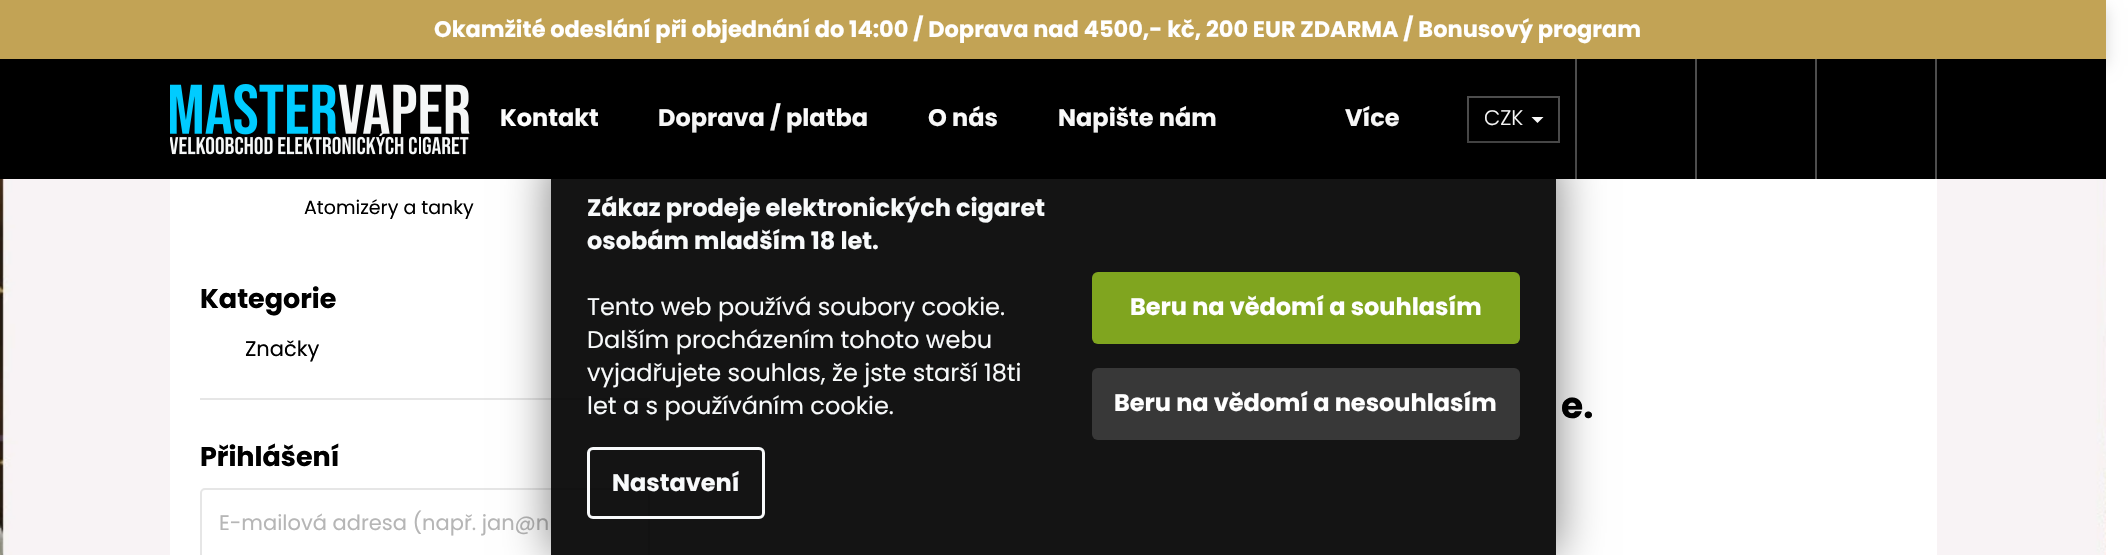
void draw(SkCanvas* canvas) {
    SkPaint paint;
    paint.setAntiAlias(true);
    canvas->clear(0xFFFFFFFF);
    canvas->drawImageRect(SkImages::DeferredFromEncodedData(SkData::MakeFromFileName("img1.png")), SkRect::MakeXYWH(0, 179, 2106, 376), SkSamplingOptions());
    paint.setColor(0x29000000);
    paint.setMaskFilter(SkMaskFilter::MakeBlur(kNormal_SkBlurStyle, 7.5f));
    canvas->drawRect(SkRect::MakeXYWH(0, 8, 2106, 58), paint);
    paint.setMaskFilter(nullptr);
    paint.setColor(0xFFC2A355);
    canvas->drawRect(SkRect::MakeXYWH(0, 0, 2106, 59), paint);
    SkFont font1(fontMgr->matchFamilyStyle("Poppins", SkFontStyle::Bold()), 22.5f);
    font1.setSubpixel(true);
    paint.setColor(0xFFFFFFFF);
    canvas->drawString("Okamžité odeslání při objednání do 14:00 / Doprava nad 4500,- kč, 200 EUR ZDARMA / Bonusový program", 434, 37, font1, paint);
    paint.setColor(0xFF000000);
    canvas->drawRect(SkRect::MakeXYWH(0, 59, 2106, 120), paint);
    canvas->drawImageRect(SkImages::DeferredFromEncodedData(SkData::MakeFromFileName("img2.png")), SkRect::MakeXYWH(170, 84, 300, 71), SkSamplingOptions());
    SkFont font2(fontMgr->matchFamilyStyle("Poppins", SkFontStyle::Bold()), 24);
    font2.setSubpixel(true);
    paint.setColor(0xFFFFFFFF);
    canvas->drawString("Kontakt", 500, 126, font2, paint);
    canvas->drawString("Doprava / platba", 658, 126, font2, paint);
    canvas->drawString("O nás", 928, 126, font2, paint);
    canvas->drawString("Napište nám", 1058, 126, font2, paint);
    canvas->drawString("Více", 1345, 126, font2, paint);
    paint.setColor(0xFF4D4D4D);
    canvas->drawRect(SkRect::MakeXYWH(1935, 59, 2, 120), paint);
    paint.setStyle(SkPaint::kStroke_Style);
    paint.setStrokeWidth(2);
    canvas->drawRect(SkRect::MakeXYWH(1468, 97, 91, 45), paint);
    SkFont font3(fontMgr->matchFamilyStyle("Poppins", SkFontStyle(300, SkFontStyle::kNormal_Width, SkFontStyle::kUpright_Slant)), 21);
    font3.setSubpixel(true);
    paint.setStyle(SkPaint::kFill_Style);
    paint.setColor(0xFFFFFFFF);
    canvas->drawString("CZK", 1484, 125, font3, paint);
    canvas->drawPath(SkPathBuilder().moveTo(1531.5f, 117).lineTo(1543.5f, 117).lineTo(1537.5f, 123).close().detach(), paint);
    paint.setColor(0xFF4D4D4D);
    canvas->drawRect(SkRect::MakeXYWH(1575, 59, 2, 120), paint);
    canvas->drawRect(SkRect::MakeXYWH(1695, 59, 2, 120), paint);
    canvas->drawRect(SkRect::MakeXYWH(1815, 59, 2, 120), paint);
    paint.setColor(0xFFFFFFFF);
    canvas->drawRect(SkRect::MakeXYWH(170, 179, 1767, 376), paint);
    SkFont font4(fontMgr->matchFamilyStyle("Poppins", SkFontStyle::Normal()), 19);
    font4.setSubpixel(true);
    paint.setColor(0xFF000000);
    canvas->drawString("Atomizéry a tanky", 304, 214, font4, paint);
    SkFont font5(fontMgr->matchFamilyStyle("Poppins", SkFontStyle::Bold()), 27);
    font5.setSubpixel(true);
    canvas->drawString("Kategorie", 200, 308, font5, paint);
    SkFont font6(fontMgr->matchFamilyStyle("Poppins", SkFontStyle::Normal()), 21);
    font6.setSubpixel(true);
    canvas->drawString("Značky", 245, 356, font6, paint);
    paint.setColor(0xFFE6E6E6);
    canvas->drawRect(SkRect::MakeXYWH(200, 398, 450, 2), paint);
    paint.setColor(0xFF000000);
    canvas->drawString("Přihlášení", 200, 466, font5, paint);
    paint.setStyle(SkPaint::kStroke_Style);
    paint.setColor(0xFFE6E6E6);
    canvas->drawRoundRect(SkRect::MakeXYWH(201, 489, 448, 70), 4, 4, paint);
    paint.setStyle(SkPaint::kFill_Style);
    paint.setColor(0xFFB6B6B6);
    canvas->drawString("E-mailová adresa (např. jan@n", 219, 530, font6, paint);
    SkFont font7(fontMgr->matchFamilyStyle("Poppins", SkFontStyle::Bold()), 36);
    font7.setSubpixel(true);
    paint.setColor(0xFF000000);
    canvas->drawString("e.", 1561, 418, font7, paint);
    canvas->save();
    canvas->clipPath(SkPathBuilder(SkPathFillType::kEvenOdd).moveTo(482, 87).lineTo(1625, 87).lineTo(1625, 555).lineTo(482, 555).close().moveTo(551, 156).lineTo(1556, 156).lineTo(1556, 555).lineTo(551, 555).close().detach(), true);
    paint.setColor(0x80000000);
    paint.setMaskFilter(SkMaskFilter::MakeBlur(kNormal_SkBlurStyle, 22.5f));
    canvas->drawRect(SkRect::MakeXYWH(551, 156, 1005, 399), paint);
    paint.setMaskFilter(nullptr);
    canvas->restore();
    paint.setColor(0xEB000000);
    canvas->drawRect(SkRect::MakeXYWH(551, 179, 1005, 376), paint);
    paint.setColor(0xFFF8FAFB);
    canvas->drawString("Zákaz prodeje elektronických cigaret", 587, 216, font2, paint);
    canvas->drawString("osobám mladším 18 let.", 587, 249, font2, paint);
    SkFont font8(fontMgr->matchFamilyStyle("Poppins", SkFontStyle::Normal()), 24);
    font8.setSubpixel(true);
    canvas->drawString("Tento web používá soubory cookie.", 587, 315, font8, paint);
    canvas->drawString("Dalším procházením tohoto webu", 587, 348, font8, paint);
    canvas->drawString("vyjadřujete souhlas, že jste starší 18ti", 587, 381, font8, paint);
    canvas->drawString("let a s používáním cookie.", 587, 414, font8, paint);
    paint.setStyle(SkPaint::kStroke_Style);
    paint.setStrokeWidth(3);
    canvas->drawRoundRect(SkRect::MakeXYWH(588.5f, 448.5f, 175, 69), 4.5f, 4.5f, paint);
    paint.setStyle(SkPaint::kFill_Style);
    canvas->drawString("Nastavení", 612, 491, font2, paint);
    paint.setColor(0xFF80A51F);
    canvas->drawRoundRect(SkRect::MakeXYWH(1092, 272, 428, 72), 6, 6, paint);
    paint.setColor(0xFFFFFFFF);
    canvas->drawString("Beru na vědomí a souhlasím", 1130, 315, font2, paint);
    paint.setColor(0xFF383838);
    canvas->drawRoundRect(SkRect::MakeXYWH(1092, 368, 428, 72), 6, 6, paint);
    paint.setColor(0xFFFFFFFF);
    canvas->drawString("Beru na vědomí a nesouhlasím", 1114, 411, font2, paint);
}
